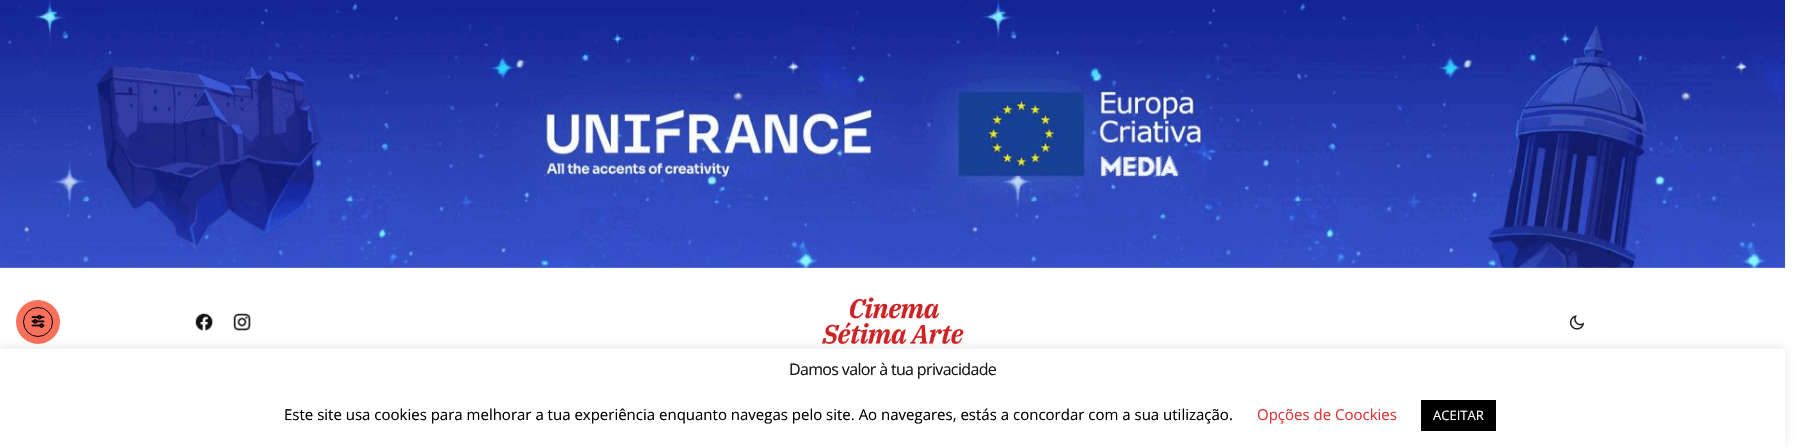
void draw(SkCanvas* canvas) {
    SkPaint paint;
    paint.setAntiAlias(true);
    auto spacedText = [&](const char* s, float x, float y, const SkFont& font, const SkPaint& ink, float letter, float word) {
        std::vector<SkGlyphID> glyphs(font.countText(s, strlen(s), SkTextEncoding::kUTF8));
        std::vector<float> xs(glyphs.size());
        font.textToGlyphs(s, strlen(s), SkTextEncoding::kUTF8, glyphs);
        font.getXPos(glyphs, xs, x);
        float extra = 0;
        for (size_t i = 0; i < glyphs.size(); i++) {
            xs[i] += extra;
            extra += letter + word * (glyphs[i] == font.unicharToGlyph(' '));
        }
        canvas->drawTextBlob(SkTextBlob::MakeFromPosHGlyphs(glyphs, xs, y, font), 0, 0, ink);
    };
    canvas->clear(0xFFFFFFFF);
    canvas->drawImageRect(SkImages::DeferredFromEncodedData(SkData::MakeFromFileName("img5.png")), SkRect::MakeXYWH(821, 297, 143, 47), SkSamplingOptions());
    paint.setColor(0x4DACABAB);
    paint.setMaskFilter(SkMaskFilter::MakeBlur(kNormal_SkBlurStyle, 5));
    canvas->drawRect(SkRect::MakeXYWH(0, 348, 1785, 99), paint);
    paint.setMaskFilter(nullptr);
    paint.setColor(0xFFF9705B);
    canvas->drawCircle(38, 322, 22, paint);
    paint.setStyle(SkPaint::kStroke_Style);
    paint.setStrokeWidth(1);
    paint.setColor(0xFF000000);
    canvas->drawCircle(38, 322, 14.5f, paint);
    canvas->drawImageRect(SkImages::DeferredFromEncodedData(SkData::MakeFromFileName("img1.png")), SkRect::MakeXYWH(31, 314, 14, 14), SkSamplingOptions());
    canvas->drawImageRect(SkImages::DeferredFromEncodedData(SkData::MakeFromFileName("img2.png")), SkRect::MakeXYWH(0, 0, 1785, 268), SkSamplingOptions());
    canvas->drawImageRect(SkImages::DeferredFromEncodedData(SkData::MakeFromFileName("img3.png")), SkRect::MakeXYWH(195, 313, 19, 18), SkSamplingOptions());
    canvas->drawImageRect(SkImages::DeferredFromEncodedData(SkData::MakeFromFileName("img4.png")), SkRect::MakeXYWH(233, 313, 18, 18), SkSamplingOptions());
    canvas->drawImageRect(SkImages::DeferredFromEncodedData(SkData::MakeFromFileName("img6.png")), SkRect::MakeXYWH(1569, 315, 16, 15), SkSamplingOptions());
    paint.setStyle(SkPaint::kFill_Style);
    paint.setColor(0xFFFFFFFF);
    canvas->drawRect(SkRect::MakeXYWH(0, 349, 1785, 99), paint);
    SkFont font1(fontMgr->matchFamilyStyle("Open Sans", SkFontStyle::Normal()), 16);
    font1.setSubpixel(true);
    paint.setColor(0xFF161616);
    spacedText("Damos valor à tua privacidade", 789, 375, font1, paint, -0.65f, 0);
    SkFont font2(fontMgr->matchFamilyStyle("Open Sans", SkFontStyle::Normal()), 15);
    font2.setSubpixel(true);
    paint.setColor(0xFF000000);
    canvas->drawString("Este site usa cookies para melhorar a tua experiência enquanto navegas pelo site. Ao navegares, estás a concordar com a sua utilização.", 284, 420, font2, paint);
    paint.setColor(0xFFDD3333);
    canvas->drawString("Opções de Coockies", 1257, 420, font2, paint);
    paint.setColor(0xFF000000);
    canvas->drawRect(SkRect::MakeXYWH(1421, 400, 75, 31), paint);
    SkFont font3(fontMgr->matchFamilyStyle("Open Sans", SkFontStyle::Normal()), 13);
    font3.setSubpixel(true);
    paint.setColor(0xFFFFFFFF);
    canvas->drawString("ACEITAR", 1433, 420, font3, paint);
}
